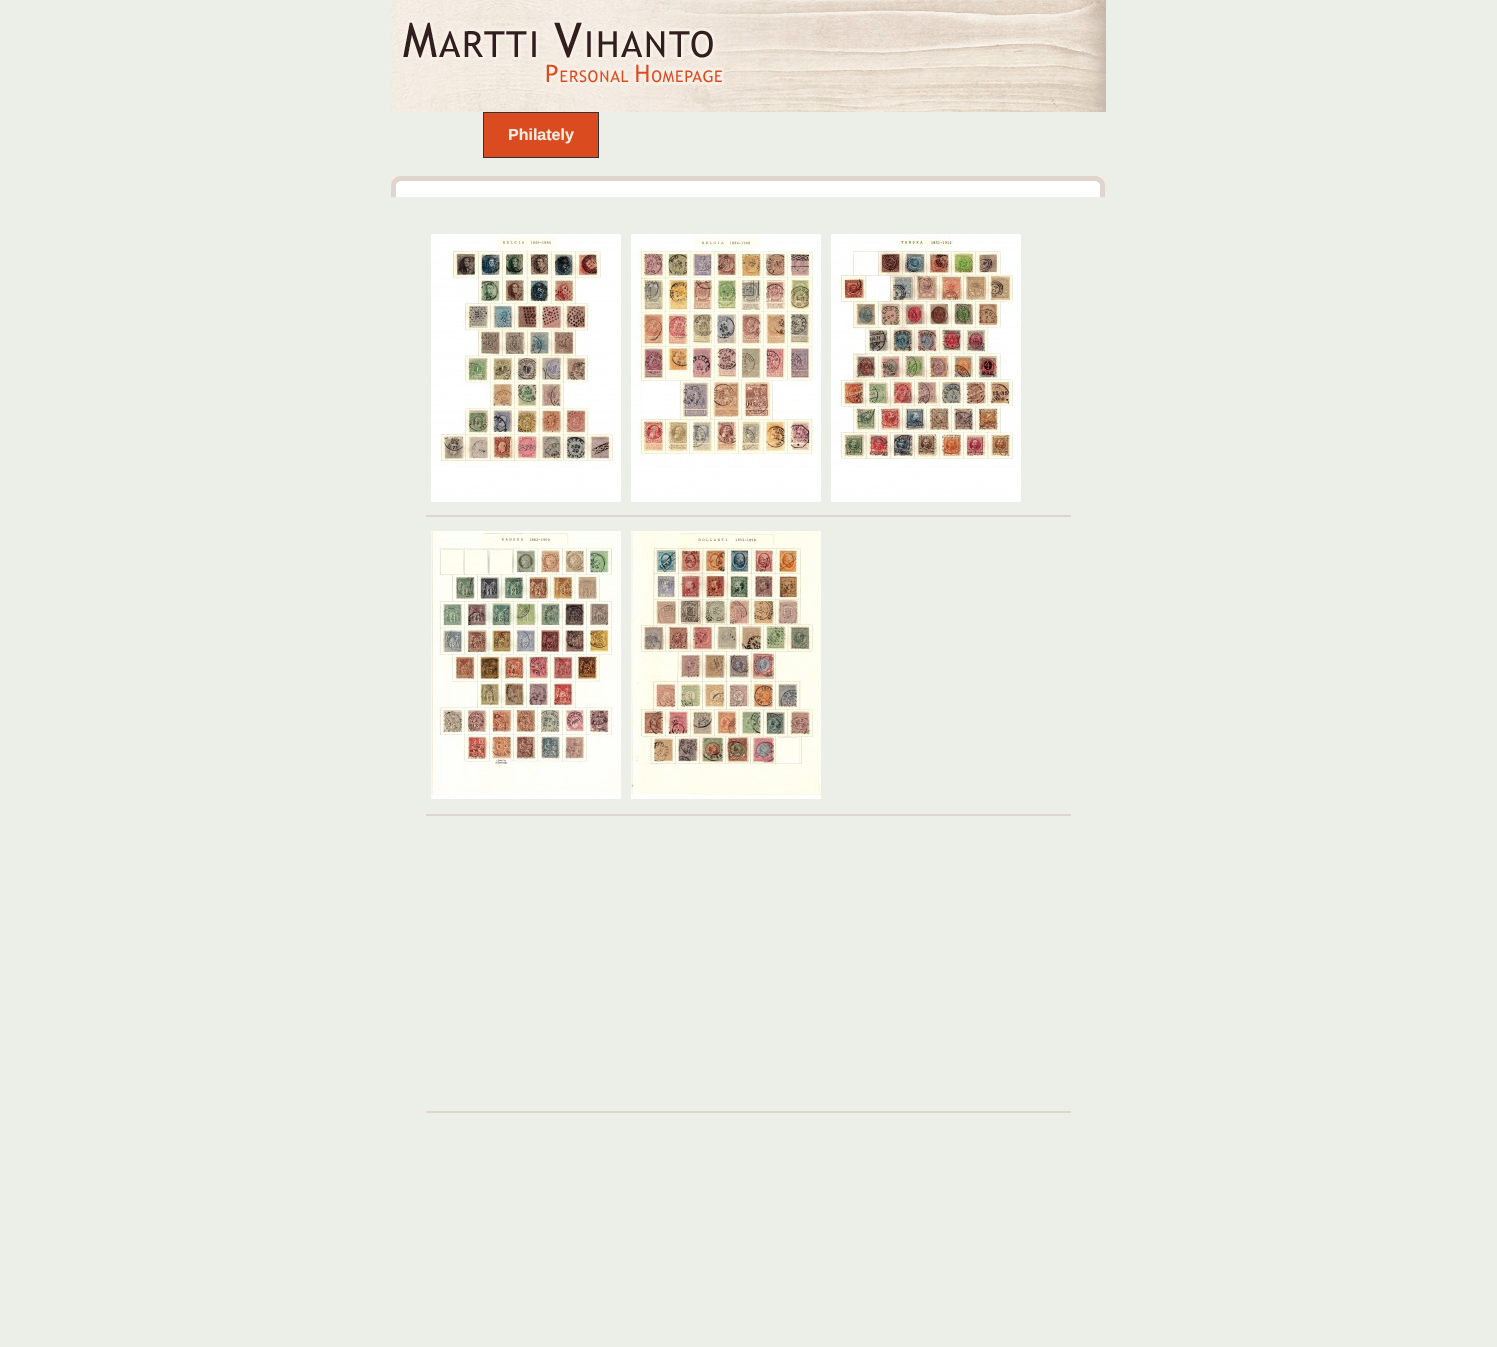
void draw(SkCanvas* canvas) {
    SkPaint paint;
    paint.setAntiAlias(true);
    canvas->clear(0xFFECEEE8);
    canvas->drawImageRect(SkImages::DeferredFromEncodedData(SkData::MakeFromFileName("img1.png")), SkRect::MakeXYWH(391, 0, 715, 112), SkSamplingOptions());
    paint.setColor(0xFFDA4C20);
    canvas->drawRect(SkRect::MakeXYWH(483.5f, 112.5f, 115, 45), paint);
    paint.setStyle(SkPaint::kStroke_Style);
    paint.setStrokeWidth(1);
    paint.setColor(0xFF333333);
    canvas->drawRect(SkRect::MakeXYWH(483.5f, 112.5f, 115, 45), paint);
    SkFont font1(fontMgr->matchFamilyStyle("Liberation Sans", SkFontStyle::Bold()), 16);
    font1.setSubpixel(true);
    paint.setStyle(SkPaint::kFill_Style);
    paint.setColor(0xFFF5ECE3);
    canvas->drawString("Philately", 508, 140, font1, paint);
    canvas->drawImageRect(SkImages::DeferredFromEncodedData(SkData::MakeFromFileName("img2.png")), SkRect::MakeXYWH(391, 176, 715, 21), SkSamplingOptions());
    canvas->drawImageRect(SkImages::DeferredFromEncodedData(SkData::MakeFromFileName("img3.png")), SkRect::MakeXYWH(431, 234, 190, 268), SkSamplingOptions());
    canvas->drawImageRect(SkImages::DeferredFromEncodedData(SkData::MakeFromFileName("img4.png")), SkRect::MakeXYWH(631, 234, 190, 268), SkSamplingOptions());
    canvas->drawImageRect(SkImages::DeferredFromEncodedData(SkData::MakeFromFileName("img5.png")), SkRect::MakeXYWH(831, 234, 190, 268), SkSamplingOptions());
    paint.setColor(0xFFDFD5CC);
    canvas->drawRect(SkRect::MakeXYWH(426, 515, 645, 2), paint);
    canvas->drawImageRect(SkImages::DeferredFromEncodedData(SkData::MakeFromFileName("img6.png")), SkRect::MakeXYWH(431, 531, 190, 268), SkSamplingOptions());
    canvas->drawImageRect(SkImages::DeferredFromEncodedData(SkData::MakeFromFileName("img7.png")), SkRect::MakeXYWH(631, 531, 190, 268), SkSamplingOptions());
    canvas->drawRect(SkRect::MakeXYWH(426, 814, 645, 2), paint);
    canvas->drawRect(SkRect::MakeXYWH(426, 1111, 645, 2), paint);
}
